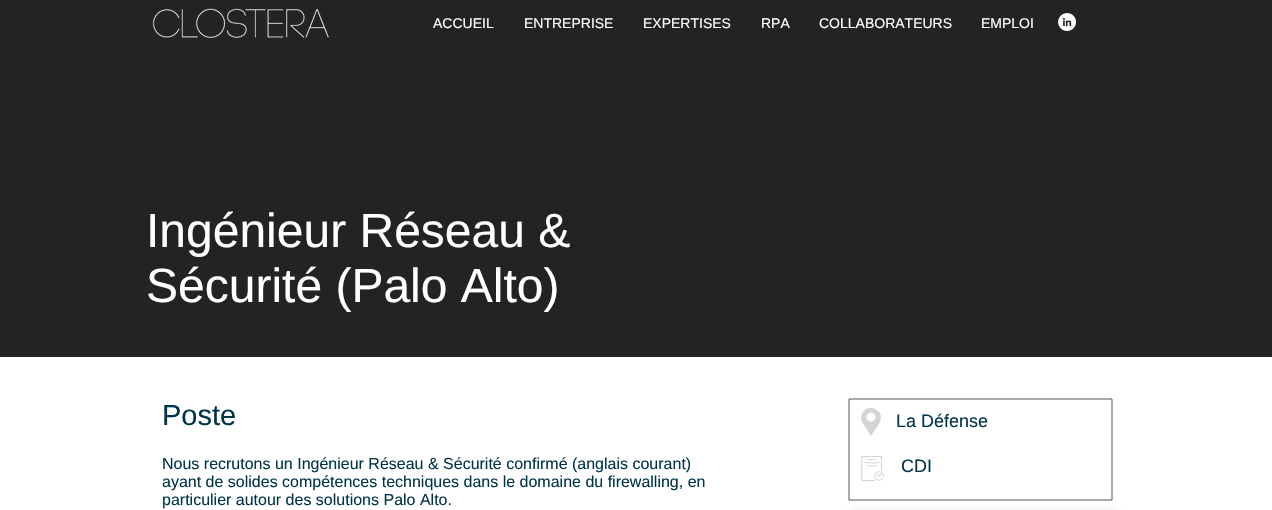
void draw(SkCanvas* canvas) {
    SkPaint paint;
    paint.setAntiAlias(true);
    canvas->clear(0xFFFFFFFF);
    paint.setColor(0xFF242323);
    canvas->drawRect(SkRect::MakeXYWH(0, 0, 1272, 357), paint);
    canvas->drawImageRect(SkImages::DeferredFromEncodedData(SkData::MakeFromFileName("img1.png")), SkRect::MakeXYWH(152, 8, 177, 30), SkSamplingOptions());
    SkFont font1(fontMgr->matchFamilyStyle("Liberation Sans", SkFontStyle::Normal()), 14);
    font1.setSubpixel(true);
    paint.setColor(0xFFFFFFFF);
    canvas->drawString("ACCUEIL", 433, 28, font1, paint);
    canvas->drawString("ENTREPRISE", 524, 28, font1, paint);
    canvas->drawString("EXPERTISES", 643, 28, font1, paint);
    canvas->drawString("RPA", 761, 28, font1, paint);
    canvas->drawString("COLLABORATEURS", 819, 28, font1, paint);
    canvas->drawString("EMPLOI", 981, 28, font1, paint);
    canvas->drawImageRect(SkImages::DeferredFromEncodedData(SkData::MakeFromFileName("img2.png")), SkRect::MakeXYWH(1058, 13, 18, 18), SkSamplingOptions());
    SkFont font2(fontMgr->matchFamilyStyle("Liberation Sans", SkFontStyle::Normal()), 48);
    font2.setSubpixel(true);
    canvas->drawString("Ingénieur Réseau &", 146, 247, font2, paint);
    canvas->drawString("Sécurité (Palo Alto)", 146, 302, font2, paint);
    SkFont font3(fontMgr->matchFamilyStyle("Liberation Sans", SkFontStyle::Normal()), 29);
    font3.setSubpixel(true);
    paint.setColor(0xFF003548);
    canvas->drawString("Poste", 162, 425, font3, paint);
    SkFont font4(fontMgr->matchFamilyStyle("Liberation Sans", SkFontStyle::Normal()), 16);
    font4.setSubpixel(true);
    canvas->drawString("Nous recrutons un Ingénieur Réseau & Sécurité confirmé (anglais courant)", 162, 469, font4, paint);
    canvas->drawString("ayant de solides compétences techniques dans le domaine du firewalling, en", 162, 487, font4, paint);
    canvas->drawString("particulier autour des solutions Palo Alto.", 162, 505, font4, paint);
    paint.setStyle(SkPaint::kStroke_Style);
    paint.setStrokeWidth(1);
    paint.setColor(0xFF545454);
    canvas->drawPath(SkPathBuilder().moveTo(1112, 399).lineTo(1112, 500).lineTo(849, 500).lineTo(849, 399).close().detach(), paint);
    canvas->drawImageRect(SkImages::DeferredFromEncodedData(SkData::MakeFromFileName("img3.png")), SkRect::MakeXYWH(861, 408, 20, 28), SkSamplingOptions());
    SkFont font5(fontMgr->matchFamilyStyle("Liberation Sans", SkFontStyle::Normal()), 18);
    font5.setSubpixel(true);
    paint.setStyle(SkPaint::kFill_Style);
    paint.setColor(0xFF003548);
    canvas->drawString("La Défense", 896, 427, font5, paint);
    canvas->drawImageRect(SkImages::DeferredFromEncodedData(SkData::MakeFromFileName("img4.png")), SkRect::MakeXYWH(861, 456, 23, 25), SkSamplingOptions());
    canvas->drawString("CDI", 901, 472, font5, paint);
    paint.setColor(0x8C000000);
    paint.setMaskFilter(SkMaskFilter::MakeBlur(kNormal_SkBlurStyle, 5.5f));
    canvas->drawRect(SkRect::MakeXYWH(850, 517, 264, 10), paint);
    paint.setMaskFilter(nullptr);
}
